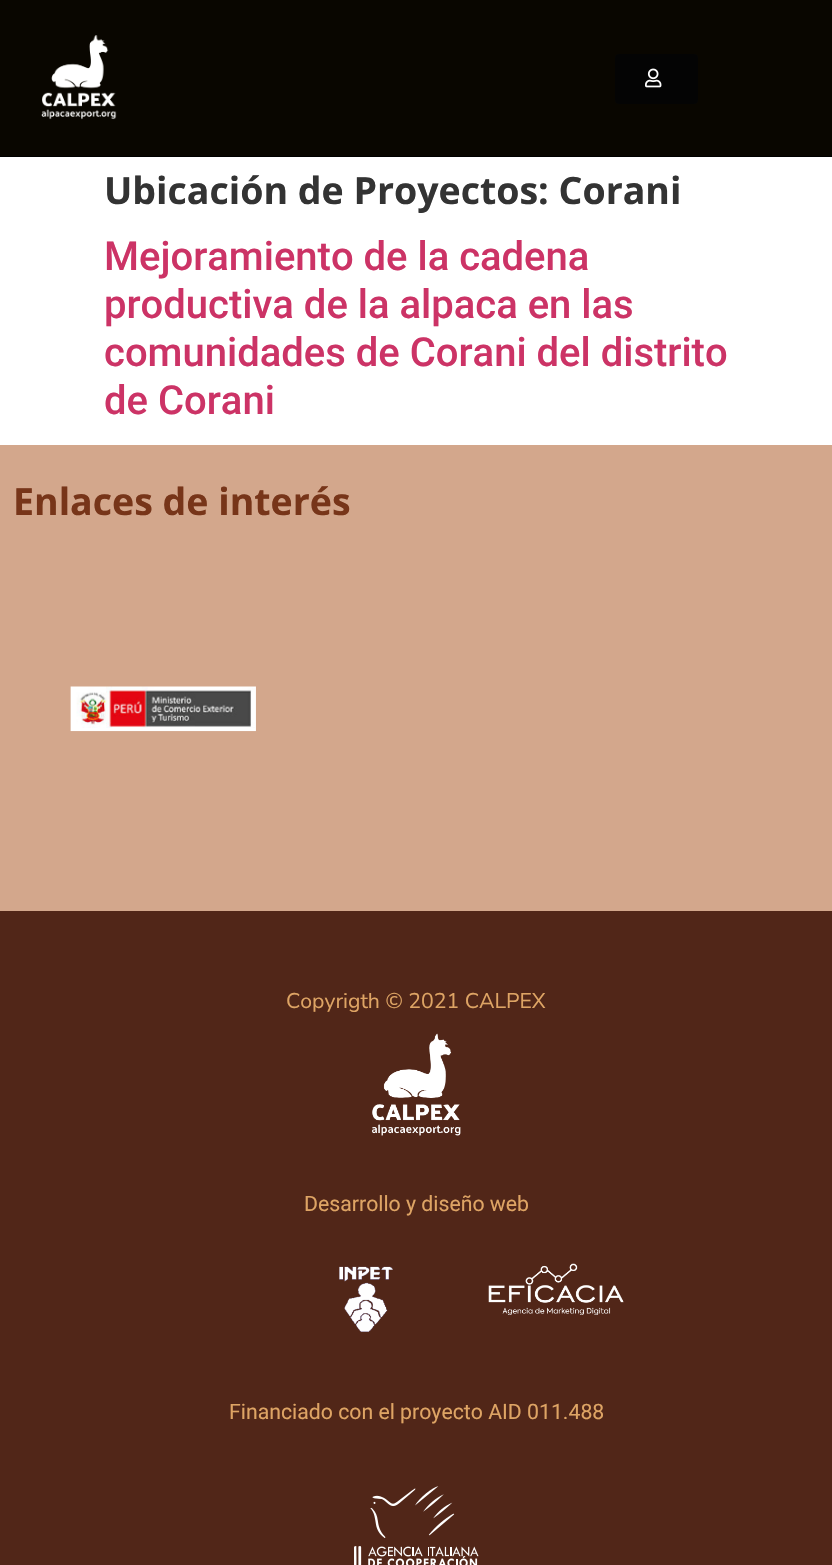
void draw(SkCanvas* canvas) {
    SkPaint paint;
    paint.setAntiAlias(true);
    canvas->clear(0xFFFFFFFF);
    paint.setColor(0xFF090600);
    canvas->drawRect(SkRect::MakeXYWH(0, 0, 832, 156), paint);
    paint.setColor(0xFF000000);
    canvas->drawRect(SkRect::MakeXYWH(0, 156, 832, 1), paint);
    canvas->drawImageRect(SkImages::DeferredFromEncodedData(SkData::MakeFromFileName("img1.png")), SkRect::MakeXYWH(41, 35, 76, 85), SkSamplingOptions());
    paint.setColor(0xFF040404);
    canvas->drawRoundRect(SkRect::MakeXYWH(615, 54, 83, 50), 4, 4, paint);
    canvas->drawImageRect(SkImages::DeferredFromEncodedData(SkData::MakeFromFileName("img2.png")), SkRect::MakeXYWH(645, 68, 17, 20), SkSamplingOptions());
    SkFont font1(fontMgr->matchFamilyStyle("Open Sans", SkFontStyle::Bold()), 37.5f);
    font1.setSubpixel(true);
    paint.setColor(0xFF333333);
    canvas->drawString("Ubicación de Proyectos: Corani", 104, 204, font1, paint);
    SkFont font2(fontMgr->matchFamilyStyle("Roboto", SkFontStyle(500, SkFontStyle::kNormal_Width, SkFontStyle::kUpright_Slant)), 40);
    font2.setSubpixel(true);
    paint.setColor(0xFFCC3366);
    canvas->drawString("Mejoramiento de la cadena", 104, 270, font2, paint);
    canvas->drawString("productiva de la alpaca en las", 104, 318, font2, paint);
    canvas->drawString("comunidades de Corani del distrito", 104, 366, font2, paint);
    canvas->drawString("de Corani", 104, 414, font2, paint);
    paint.setColor(0xFFD3A78C);
    canvas->drawRect(SkRect::MakeXYWH(0, 445, 832, 466), paint);
    paint.setColor(0xFF773519);
    canvas->drawString("Enlaces de interés", 13, 515, font1, paint);
    canvas->drawImageRect(SkImages::DeferredFromEncodedData(SkData::MakeFromFileName("img3.png")), SkRect::MakeXYWH(70, 686, 186, 46), SkSamplingOptions());
    paint.setColor(0xFF512618);
    canvas->drawRect(SkRect::MakeXYWH(0, 911, 832, 654), paint);
    SkFont font3(fontMgr->matchFamilyStyle("Nunito Sans", SkFontStyle::Normal()), 21.25f);
    font3.setSubpixel(true);
    paint.setColor(0xFFDEA464);
    canvas->drawString("Copyrigth © 2021 CALPEX", 286, 1008, font3, paint);
    canvas->drawImageRect(SkImages::DeferredFromEncodedData(SkData::MakeFromFileName("img4.png")), SkRect::MakeXYWH(372, 1033, 89, 103), SkSamplingOptions());
    SkFont font4(fontMgr->matchFamilyStyle("Roboto", SkFontStyle::Normal()), 21.25f);
    font4.setSubpixel(true);
    canvas->drawString("Desarrollo y diseño web", 304, 1211, font4, paint);
    canvas->drawImageRect(SkImages::DeferredFromEncodedData(SkData::MakeFromFileName("img5.png")), SkRect::MakeXYWH(339, 1266, 54, 66), SkSamplingOptions());
    canvas->drawImageRect(SkImages::DeferredFromEncodedData(SkData::MakeFromFileName("img6.png")), SkRect::MakeXYWH(488, 1263, 136, 52), SkSamplingOptions());
    canvas->drawString("Financiado con el proyecto AID 011.488", 229, 1419, font4, paint);
    canvas->drawImageRect(SkImages::DeferredFromEncodedData(SkData::MakeFromFileName("img7.png")), SkRect::MakeXYWH(354, 1486, 125, 79), SkSamplingOptions());
}
